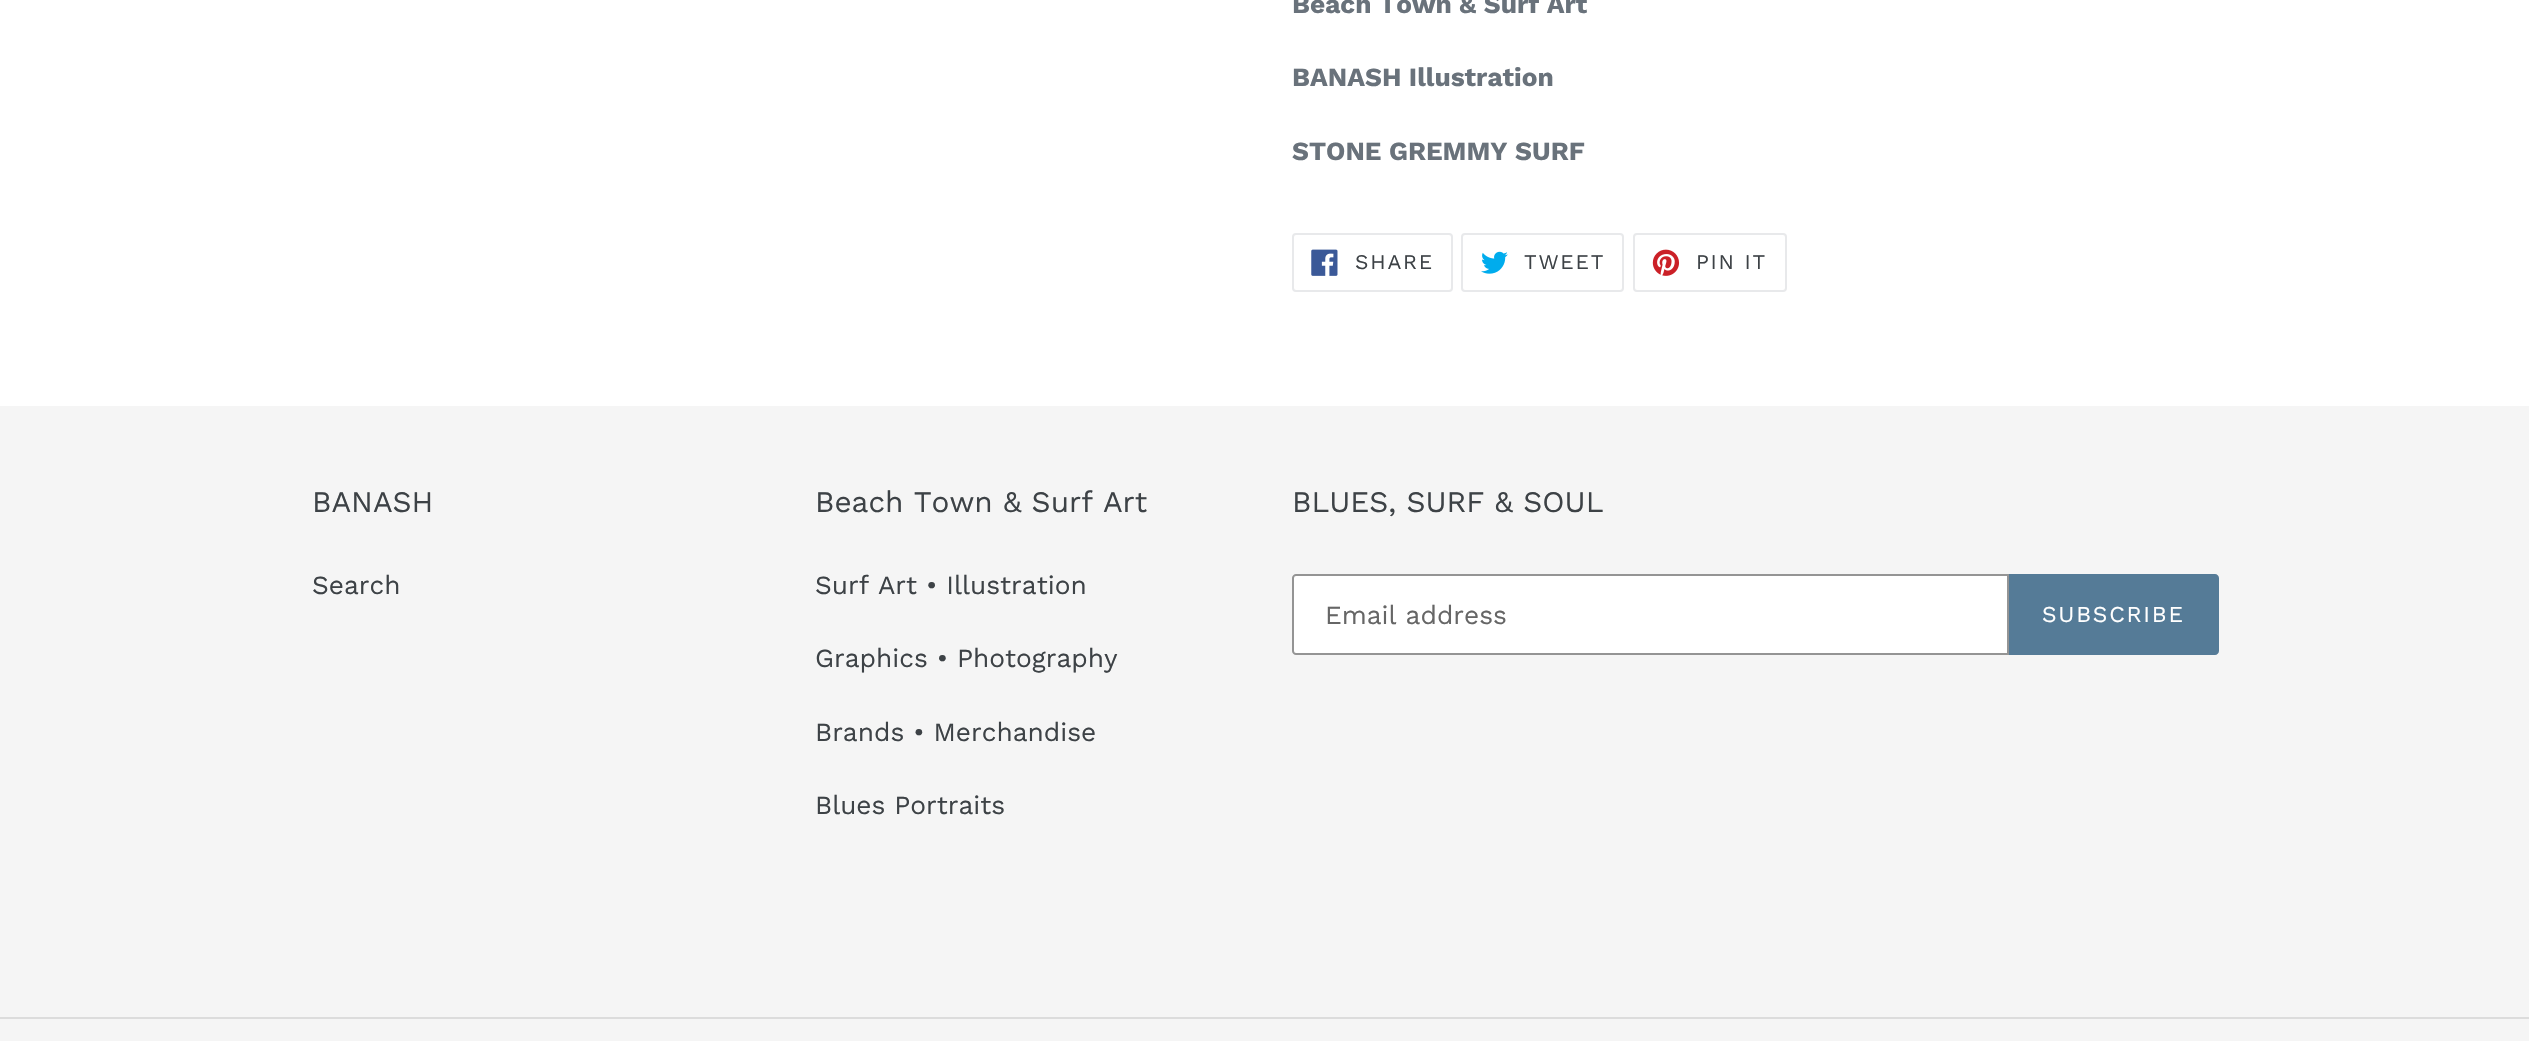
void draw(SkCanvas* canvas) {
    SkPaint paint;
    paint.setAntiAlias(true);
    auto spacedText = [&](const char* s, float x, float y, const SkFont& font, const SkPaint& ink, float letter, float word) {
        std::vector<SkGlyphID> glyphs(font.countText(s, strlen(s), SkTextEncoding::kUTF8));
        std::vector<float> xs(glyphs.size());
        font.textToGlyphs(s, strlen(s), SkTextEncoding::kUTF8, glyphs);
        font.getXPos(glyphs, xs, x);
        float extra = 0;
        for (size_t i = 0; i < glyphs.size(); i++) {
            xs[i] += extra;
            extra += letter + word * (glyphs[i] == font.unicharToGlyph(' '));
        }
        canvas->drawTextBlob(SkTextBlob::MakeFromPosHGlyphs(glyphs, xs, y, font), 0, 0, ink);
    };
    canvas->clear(0xFFFFFFFF);
    SkFont font1(fontMgr->matchFamilyStyle("Work Sans", SkFontStyle::Bold()), 26.25f);
    font1.setSubpixel(true);
    paint.setColor(0xFF69727B);
    canvas->drawString("Beach Town & Surf Art", 1292, 13, font1, paint);
    canvas->drawString("BANASH Illustration", 1292, 86, font1, paint);
    canvas->drawString("STONE GREMMY SURF", 1292, 160, font1, paint);
    paint.setStyle(SkPaint::kStroke_Style);
    paint.setStrokeWidth(2);
    paint.setColor(0xFFE8E9EB);
    canvas->drawRoundRect(SkRect::MakeXYWH(1293, 234, 159, 57), 3, 3, paint);
    canvas->drawImageRect(SkImages::DeferredFromEncodedData(SkData::MakeFromFileName("img1.png")), SkRect::MakeXYWH(1311, 249, 27, 27), SkSamplingOptions());
    SkFont font2(fontMgr->matchFamilyStyle("Work Sans", SkFontStyle::Normal()), 21);
    font2.setSubpixel(true);
    paint.setStyle(SkPaint::kFill_Style);
    paint.setColor(0xFF3D4246);
    spacedText("SHARE", 1355, 269, font2, paint, 1.75f, 0);
    paint.setStyle(SkPaint::kStroke_Style);
    paint.setColor(0xFFE8E9EB);
    canvas->drawRoundRect(SkRect::MakeXYWH(1462, 234, 161, 57), 3, 3, paint);
    canvas->drawImageRect(SkImages::DeferredFromEncodedData(SkData::MakeFromFileName("img2.png")), SkRect::MakeXYWH(1481, 251, 27, 23), SkSamplingOptions());
    paint.setStyle(SkPaint::kFill_Style);
    paint.setColor(0xFF3D4246);
    spacedText("TWEET", 1524, 269, font2, paint, 1.75f, 0);
    paint.setStyle(SkPaint::kStroke_Style);
    paint.setColor(0xFFE8E9EB);
    canvas->drawRoundRect(SkRect::MakeXYWH(1634, 234, 152, 57), 3, 3, paint);
    canvas->drawImageRect(SkImages::DeferredFromEncodedData(SkData::MakeFromFileName("img3.png")), SkRect::MakeXYWH(1652, 249, 28, 27), SkSamplingOptions());
    paint.setStyle(SkPaint::kFill_Style);
    paint.setColor(0xFF3D4246);
    spacedText("PIN IT", 1696, 269, font2, paint, 1.75f, 0);
    paint.setColor(0xFFF5F5F5);
    canvas->drawRect(SkRect::MakeXYWH(0, 406, 2529, 635), paint);
    SkFont font3(fontMgr->matchFamilyStyle("Work Sans", SkFontStyle::Normal()), 29.75f);
    font3.setSubpixel(true);
    paint.setColor(0xFF3D4246);
    canvas->drawString("BANASH", 312, 512, font3, paint);
    SkFont font4(fontMgr->matchFamilyStyle("Work Sans", SkFontStyle::Normal()), 26.25f);
    font4.setSubpixel(true);
    canvas->drawString("Search", 312, 594, font4, paint);
    canvas->drawString("Beach Town & Surf Art", 815, 512, font3, paint);
    canvas->drawString("Surf Art • Illustration", 815, 594, font4, paint);
    canvas->drawString("Graphics • Photography", 815, 667, font4, paint);
    canvas->drawString("Brands • Merchandise", 815, 741, font4, paint);
    canvas->drawString("Blues Portraits", 815, 814, font4, paint);
    canvas->drawString("BLUES, SURF & SOUL", 1292, 512, font3, paint);
    paint.setColor(0xFFFFFFFF);
    canvas->drawPath(SkPathBuilder().moveTo(1296, 575).lineTo(2008, 575).lineTo(2008, 654).lineTo(1296, 654).cubicTo(1294.5f, 654, 1293, 652.5f, 1293, 651).lineTo(1293, 578).cubicTo(1293, 576.5f, 1294.5f, 575, 1296, 575).close().detach(), paint);
    paint.setStyle(SkPaint::kStroke_Style);
    paint.setColor(0xFF949494);
    canvas->drawPath(SkPathBuilder().moveTo(1296, 575).lineTo(2008, 575).lineTo(2008, 654).lineTo(1296, 654).cubicTo(1294.5f, 654, 1293, 652.5f, 1293, 651).lineTo(1293, 578).cubicTo(1293, 576.5f, 1294.5f, 575, 1296, 575).close().detach(), paint);
    paint.setStyle(SkPaint::kFill_Style);
    paint.setColor(0xFF666666);
    canvas->drawString("Email address", 1325, 624, font4, paint);
    paint.setColor(0xFF557B97);
    canvas->drawPath(SkPathBuilder().moveTo(2009, 574).lineTo(2215, 574).cubicTo(2217, 574, 2219, 576, 2219, 578).lineTo(2219, 651).cubicTo(2219, 653, 2217, 655, 2215, 655).lineTo(2009, 655).close().detach(), paint);
    SkFont font5(fontMgr->matchFamilyStyle("Work Sans", SkFontStyle::Normal()), 22.75f);
    font5.setSubpixel(true);
    paint.setColor(0xFFFFFFFF);
    spacedText("SUBSCRIBE", 2042, 622, font5, paint, 1.75f, 0);
    paint.setColor(0xFFDCDCDC);
    canvas->drawRect(SkRect::MakeXYWH(0, 1017, 2529, 2), paint);
}
